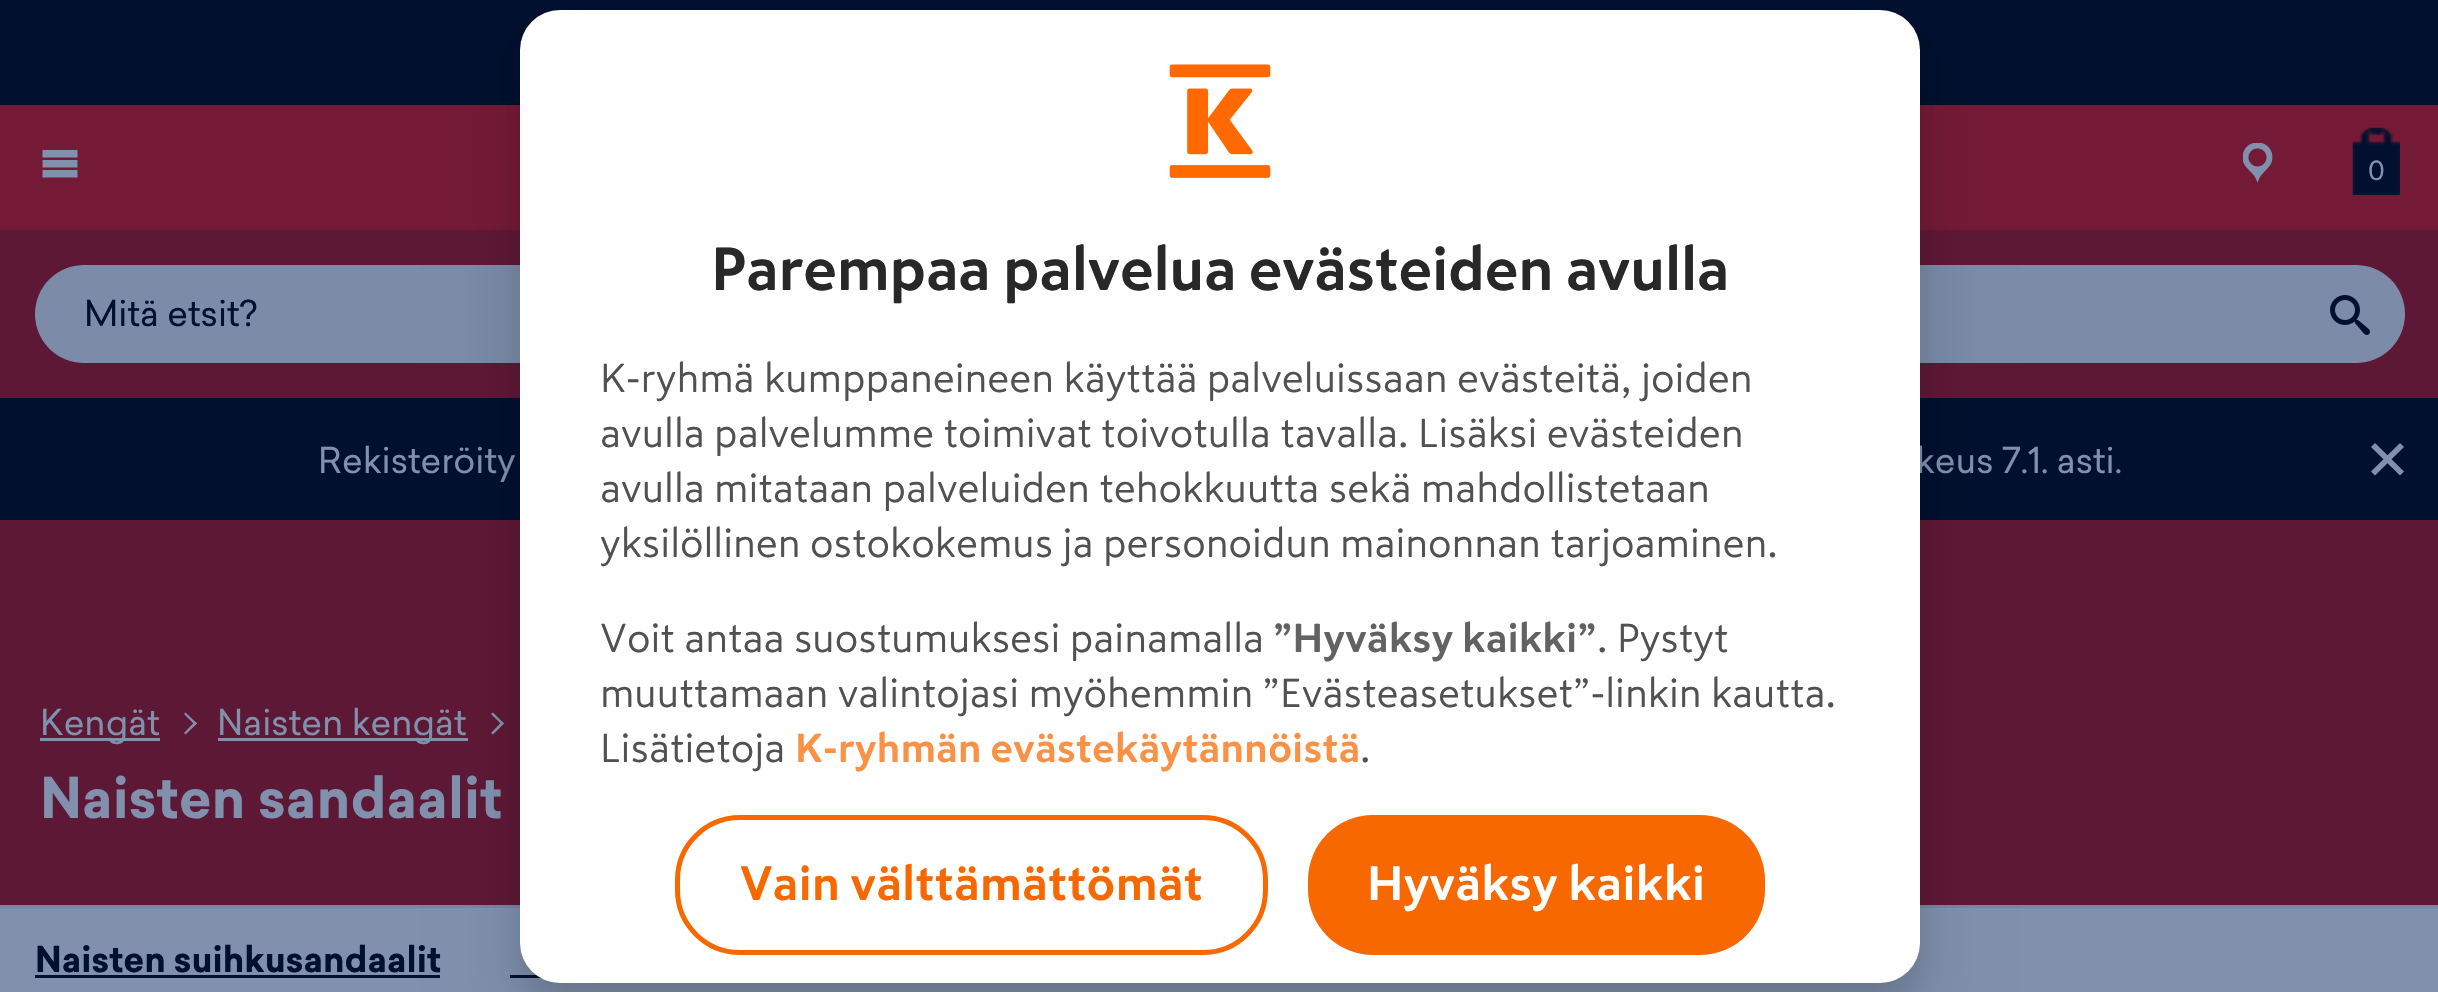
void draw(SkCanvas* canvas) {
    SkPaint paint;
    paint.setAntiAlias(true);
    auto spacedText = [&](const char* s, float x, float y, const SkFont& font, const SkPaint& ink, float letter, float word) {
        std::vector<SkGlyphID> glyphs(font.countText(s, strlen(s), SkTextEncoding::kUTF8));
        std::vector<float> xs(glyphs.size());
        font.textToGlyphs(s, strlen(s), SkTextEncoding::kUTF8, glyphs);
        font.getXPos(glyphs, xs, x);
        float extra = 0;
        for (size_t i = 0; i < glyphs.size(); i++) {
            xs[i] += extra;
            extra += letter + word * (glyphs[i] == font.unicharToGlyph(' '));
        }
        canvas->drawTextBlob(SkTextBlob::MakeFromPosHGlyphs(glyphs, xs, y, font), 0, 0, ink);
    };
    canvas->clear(0xFF8090AD);
    paint.setColor(0xFF00102E);
    canvas->drawRect(SkRect::MakeXYWH(0, 0, 2438, 105), paint);
    paint.setColor(0xFF741A36);
    canvas->drawRect(SkRect::MakeXYWH(0, 105, 2438, 125), paint);
    paint.setColor(0xFF8090AD);
    canvas->drawPath(SkPathBuilder().moveTo(42.5f, 150).lineTo(77.5f, 150).lineTo(77.5f, 157.5f).lineTo(42.5f, 157.5f).close().moveTo(42.5f, 160).lineTo(77.5f, 160).lineTo(77.5f, 167.5f).lineTo(42.5f, 167.5f).close().moveTo(42.5f, 170).lineTo(77.5f, 170).lineTo(77.5f, 177.5f).lineTo(42.5f, 177.5f).close().detach(), paint);
    canvas->drawImageRect(SkImages::DeferredFromEncodedData(SkData::MakeFromFileName("img1.png")), SkRect::MakeXYWH(2243, 143, 30, 40), SkSamplingOptions());
    canvas->drawImageRect(SkImages::DeferredFromEncodedData(SkData::MakeFromFileName("img2.png")), SkRect::MakeXYWH(2352, 127, 48, 68), SkSamplingOptions());
    SkFont font1(fontMgr->matchFamilyStyle("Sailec", SkFontStyle::Normal()), 26);
    font1.setSubpixel(true);
    canvas->drawString("0", 2368, 180, font1, paint);
    paint.setColor(0xFF5D1835);
    canvas->drawRect(SkRect::MakeXYWH(0, 230, 2438, 168), paint);
    paint.setColor(0xFF7B8BA8);
    canvas->drawRoundRect(SkRect::MakeXYWH(35, 265, 2370, 98), 49, 49, paint);
    SkFont font2(fontMgr->matchFamilyStyle("Sailec", SkFontStyle::Normal()), 35);
    font2.setSubpixel(true);
    paint.setColor(0xFF00102E);
    canvas->drawString("Mitä etsit?", 84, 326, font2, paint);
    canvas->drawImageRect(SkImages::DeferredFromEncodedData(SkData::MakeFromFileName("img3.png")), SkRect::MakeXYWH(2330, 295, 40, 40), SkSamplingOptions());
    canvas->drawRect(SkRect::MakeXYWH(0, 398, 2438, 122), paint);
    paint.setColor(0xFF8090AD);
    canvas->drawString("Rekisteröity", 318, 473, font2, paint);
    canvas->drawString("keus 7.1. asti.", 1916, 473, font2, paint);
    canvas->drawPath(SkPathBuilder().moveTo(2375, 443).lineTo(2404, 471.5f).lineTo(2400, 475.5f).lineTo(2371, 447).close().detach(), paint);
    canvas->drawPath(SkPathBuilder().moveTo(2371, 471.5f).lineTo(2400, 443).lineTo(2404, 447).lineTo(2375, 475.5f).close().detach(), paint);
    paint.setColor(0xFF5D1835);
    canvas->drawRect(SkRect::MakeXYWH(0, 520, 2438, 385), paint);
    paint.setColor(0xFF8090AD);
    canvas->drawRect(SkRect::MakeXYWH(40, 738, 120, 3), paint);
    canvas->drawString("Kengät", 40, 735, font2, paint);
    canvas->drawPath(SkPathBuilder().moveTo(184, 714).lineTo(185.5f, 712.5f).lineTo(197, 723.5f).lineTo(195, 725).close().detach(), paint);
    canvas->drawPath(SkPathBuilder().moveTo(184, 733).lineTo(195, 721.5f).lineTo(197, 723.5f).lineTo(185.5f, 734.5f).close().detach(), paint);
    canvas->drawRect(SkRect::MakeXYWH(218, 738, 250, 3), paint);
    canvas->drawString("Naisten kengät", 217, 735, font2, paint);
    canvas->drawPath(SkPathBuilder().moveTo(491, 714).lineTo(493, 712.5f).lineTo(504, 723.5f).lineTo(502, 725).close().detach(), paint);
    canvas->drawPath(SkPathBuilder().moveTo(491, 733).lineTo(502, 721.5f).lineTo(504, 723.5f).lineTo(493, 734.5f).close().detach(), paint);
    SkFont font3(fontMgr->matchFamilyStyle("Sailec", SkFontStyle::Bold()), 55);
    font3.setSubpixel(true);
    canvas->drawString("Naisten sandaalit", 40, 818, font3, paint);
    paint.setColor(0xFF7686A4);
    canvas->drawRect(SkRect::MakeXYWH(0, 905, 2438, 3), paint);
    SkFont font4(fontMgr->matchFamilyStyle("Sailec", SkFontStyle::Bold()), 35);
    font4.setSubpixel(true);
    paint.setColor(0xFF00102E);
    canvas->drawString("Naisten suihkusandaalit", 35, 972, font4, paint);
    canvas->drawRect(SkRect::MakeXYWH(35, 975, 405, 3), paint);
    canvas->drawRect(SkRect::MakeXYWH(510, 975, 31, 3), paint);
    paint.setColor(0x14000000);
    paint.setMaskFilter(SkMaskFilter::MakeBlur(kNormal_SkBlurStyle, 40));
    canvas->drawRoundRect(SkRect::MakeXYWH(515, 55, 1410, 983), 45, 45, paint);
    paint.setMaskFilter(nullptr);
    paint.setColor(0x1F000000);
    paint.setMaskFilter(SkMaskFilter::MakeBlur(kNormal_SkBlurStyle, 15));
    canvas->drawRoundRect(SkRect::MakeXYWH(520, 30, 1400, 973), 40, 40, paint);
    paint.setMaskFilter(nullptr);
    paint.setColor(0xFFFFFFFF);
    canvas->drawRoundRect(SkRect::MakeXYWH(520, 10, 1400, 973), 40, 40, paint);
    canvas->drawImageRect(SkImages::DeferredFromEncodedData(SkData::MakeFromFileName("img4.png")), SkRect::MakeXYWH(1169, 64, 102, 114), SkSamplingOptions());
    SkFont font5(fontMgr->matchFamilyStyle("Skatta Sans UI", SkFontStyle::Bold()), 60);
    font5.setSubpixel(true);
    paint.setColor(0xFF282828);
    spacedText("Parempaa palvelua evästeiden avulla", 711, 290, font5, paint, -0.6f, 0);
    SkFont font6(fontMgr->matchFamilyStyle("Skatta Sans UI", SkFontStyle::Normal()), 40);
    font6.setSubpixel(true);
    paint.setColor(0xFF515151);
    canvas->drawString("K-ryhmä kumppaneineen käyttää palveluissaan evästeitä, joiden", 600, 392, font6, paint);
    canvas->drawString("avulla palvelumme toimivat toivotulla tavalla. Lisäksi evästeiden", 600, 447, font6, paint);
    canvas->drawString("avulla mitataan palveluiden tehokkuutta sekä mahdollistetaan", 600, 502, font6, paint);
    canvas->drawString("yksilöllinen ostokokemus ja personoidun mainonnan tarjoaminen.", 600, 557, font6, paint);
    canvas->drawString("Voit antaa suostumuksesi painamalla", 600, 652, font6, paint);
    SkFont font7(fontMgr->matchFamilyStyle("Skatta Sans UI", SkFontStyle::Bold()), 40);
    font7.setSubpixel(true);
    paint.setColor(0xFF626262);
    canvas->drawString("”Hyväksy kaikki”", 1273, 652, font7, paint);
    paint.setColor(0xFF515151);
    canvas->drawString(". Pystyt", 1597, 652, font6, paint);
    canvas->drawString("muuttamaan valintojasi myöhemmin ”Evästeasetukset”-linkin kautta.", 600, 707, font6, paint);
    canvas->drawString("Lisätietoja", 600, 762, font6, paint);
    paint.setColor(0xFFFA9145);
    canvas->drawString("K-ryhmän evästekäytännöistä", 795, 762, font7, paint);
    paint.setColor(0xFF515151);
    canvas->drawString(".", 1360, 762, font6, paint);
    paint.setStyle(SkPaint::kStroke_Style);
    paint.setStrokeWidth(5);
    paint.setColor(0xFFF86800);
    canvas->drawRoundRect(SkRect::MakeXYWH(677.5f, 817.5f, 588, 135), 62.5f, 62.5f, paint);
    SkFont font8(fontMgr->matchFamilyStyle("Skatta Sans UI", SkFontStyle::Bold()), 47.5f);
    font8.setSubpixel(true);
    paint.setStyle(SkPaint::kFill_Style);
    canvas->drawString("Vain välttämättömät", 740, 900, font8, paint);
    canvas->drawRoundRect(SkRect::MakeXYWH(1308, 815, 457, 140), 65, 65, paint);
    paint.setColor(0xFFFFFFFF);
    canvas->drawString("Hyväksy kaikki", 1367, 900, font8, paint);
}
